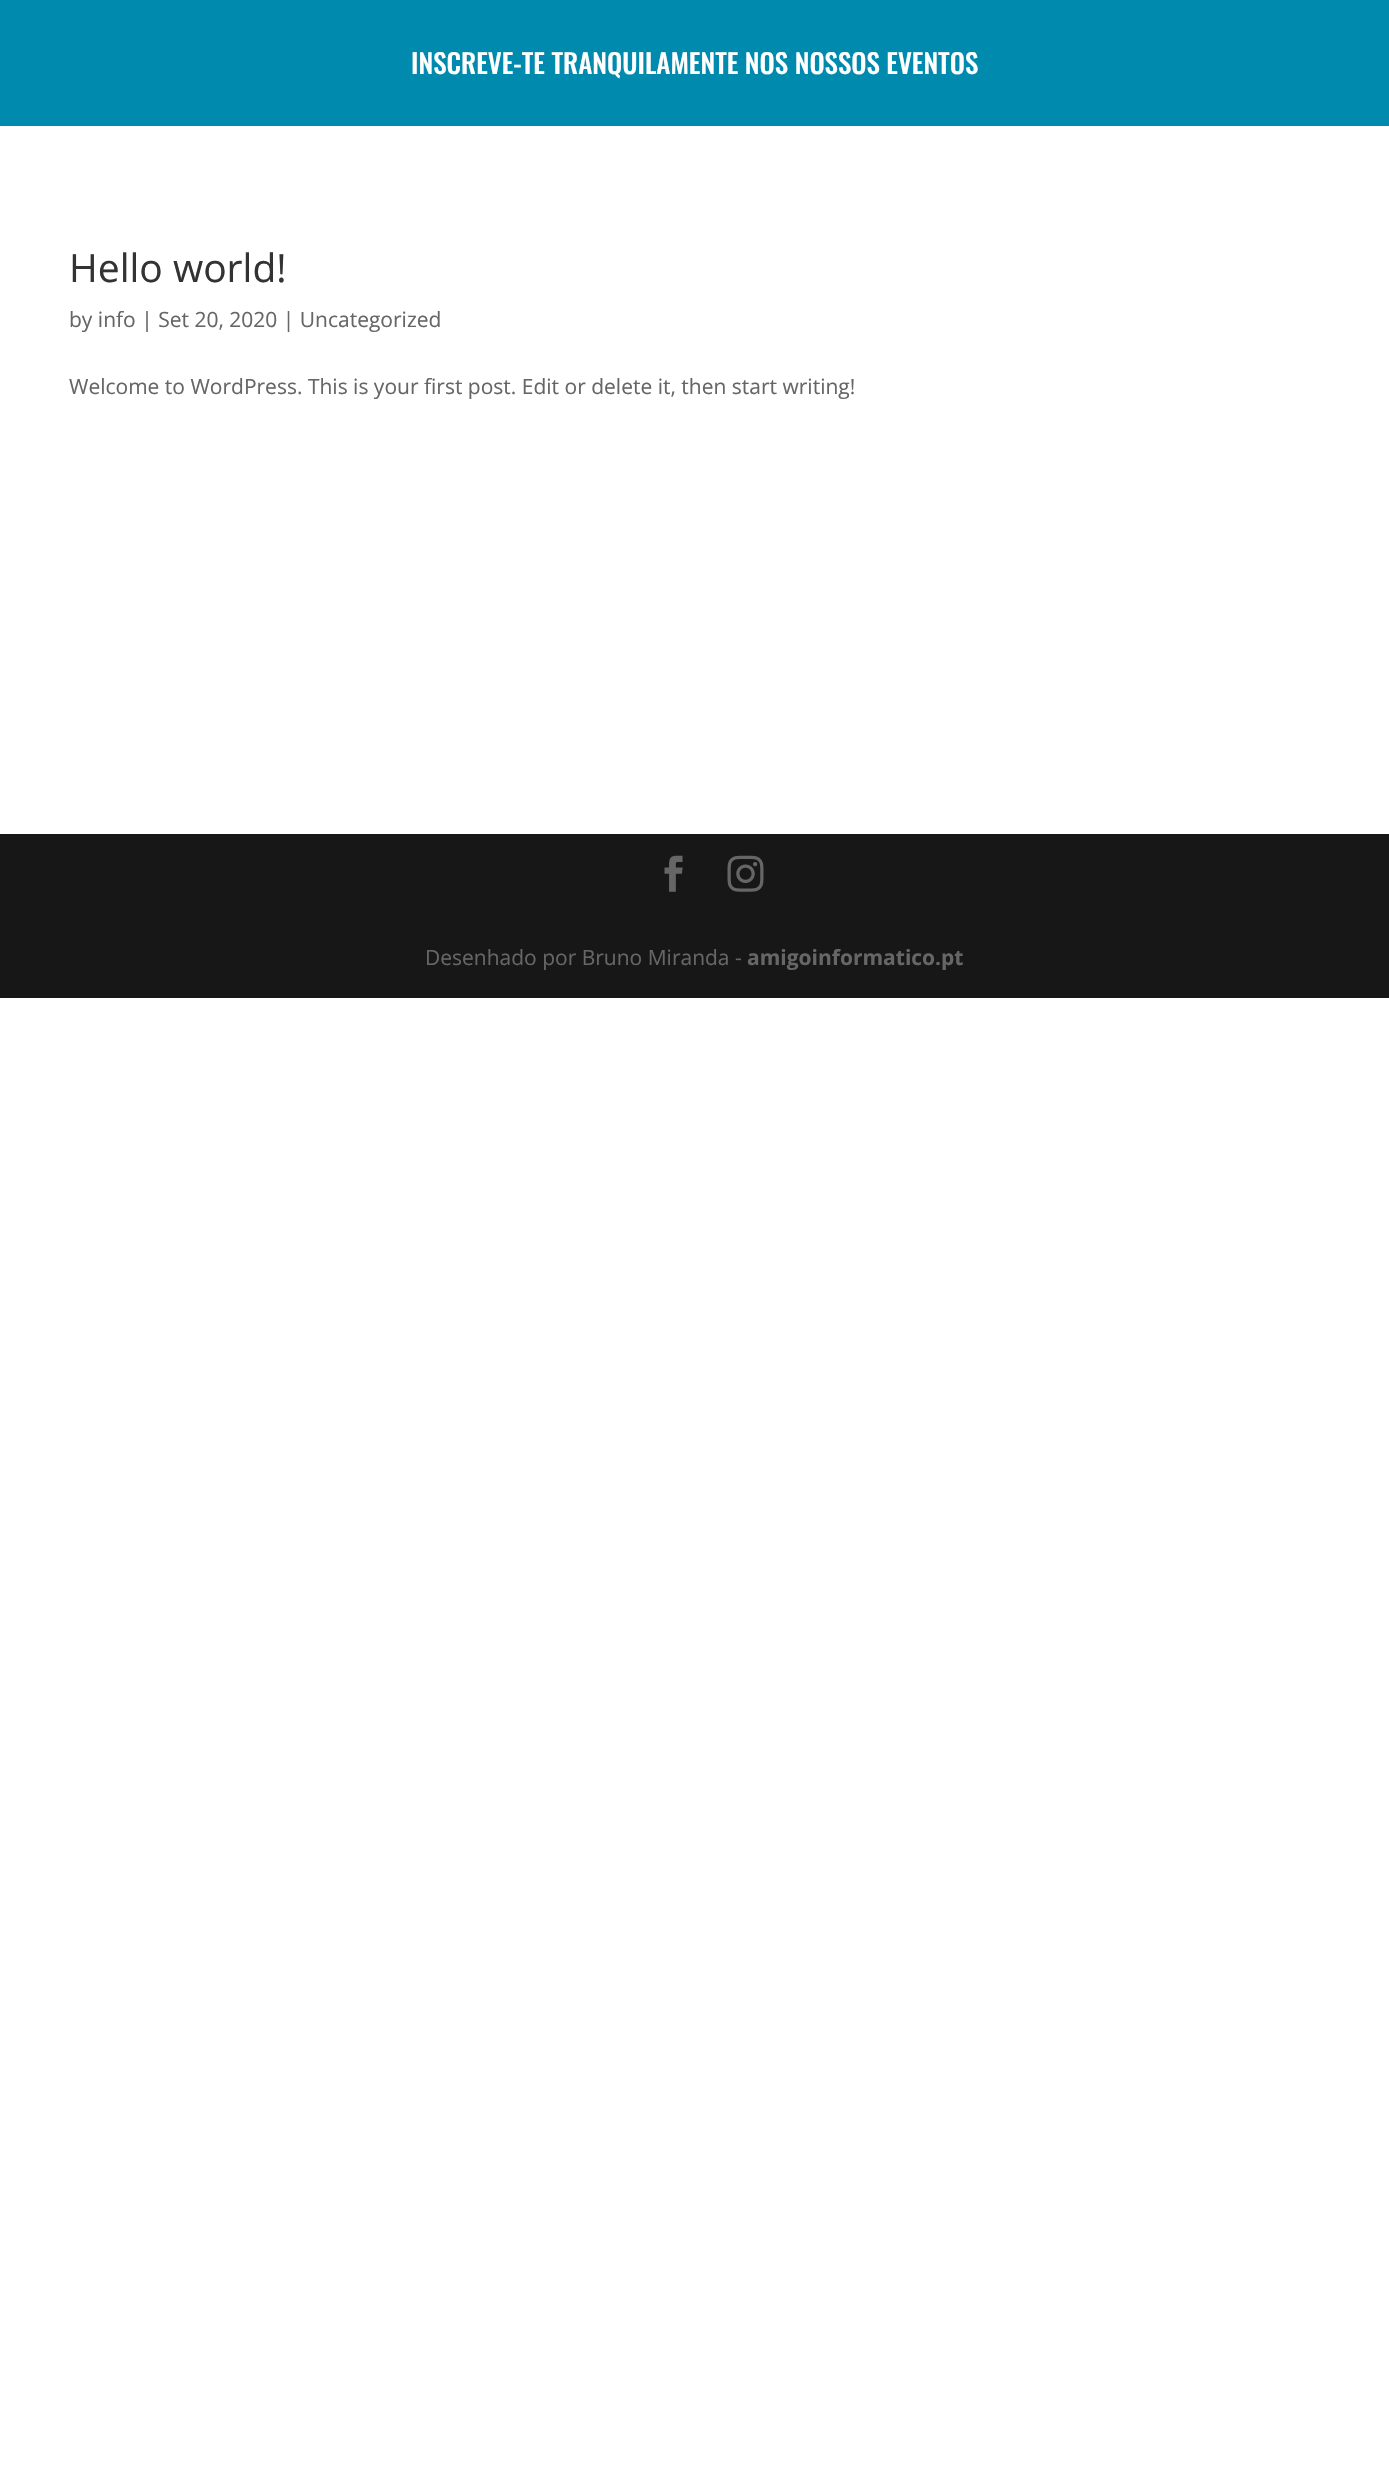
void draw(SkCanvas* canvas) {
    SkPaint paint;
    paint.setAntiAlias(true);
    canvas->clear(0xFFFFFFFF);
    paint.setColor(0xFF008AAD);
    canvas->drawRect(SkRect::MakeXYWH(0, 0, 1389, 126), paint);
    SkFont font1(fontMgr->matchFamilyStyle("Oswald", SkFontStyle(500, SkFontStyle::kNormal_Width, SkFontStyle::kUpright_Slant)), 27);
    font1.setSubpixel(true);
    paint.setColor(0xFFFFFFFF);
    canvas->drawString("INSCREVE-TE TRANQUILAMENTE NOS NOSSOS EVENTOS", 411, 74, font1, paint);
    SkFont font2(fontMgr->matchFamilyStyle("Open Sans", SkFontStyle::Normal()), 39);
    font2.setSubpixel(true);
    paint.setColor(0xFF333333);
    canvas->drawString("Hello world!", 69, 282, font2, paint);
    SkFont font3(fontMgr->matchFamilyStyle("Open Sans", SkFontStyle::Normal()), 21);
    font3.setSubpixel(true);
    paint.setColor(0xFF666666);
    canvas->drawString("by info | Set 20, 2020 | Uncategorized", 69, 327, font3, paint);
    canvas->drawString("Welcome to WordPress. This is your first post. Edit or delete it, then start writing!", 69, 394, font3, paint);
    paint.setColor(0xFF171717);
    canvas->drawRect(SkRect::MakeXYWH(0, 834, 1389, 164), paint);
    canvas->drawImageRect(SkImages::DeferredFromEncodedData(SkData::MakeFromFileName("img1.png")), SkRect::MakeXYWH(664, 855, 19, 37), SkSamplingOptions());
    canvas->drawImageRect(SkImages::DeferredFromEncodedData(SkData::MakeFromFileName("img2.png")), SkRect::MakeXYWH(727, 855, 37, 37), SkSamplingOptions());
    paint.setColor(0xFF666666);
    canvas->drawString("Desenhado por Bruno Miranda -", 425, 965, font3, paint);
    SkFont font4(fontMgr->matchFamilyStyle("Open Sans", SkFontStyle::Bold()), 21);
    font4.setSubpixel(true);
    canvas->drawString("amigoinformatico.pt", 747, 965, font4, paint);
}
